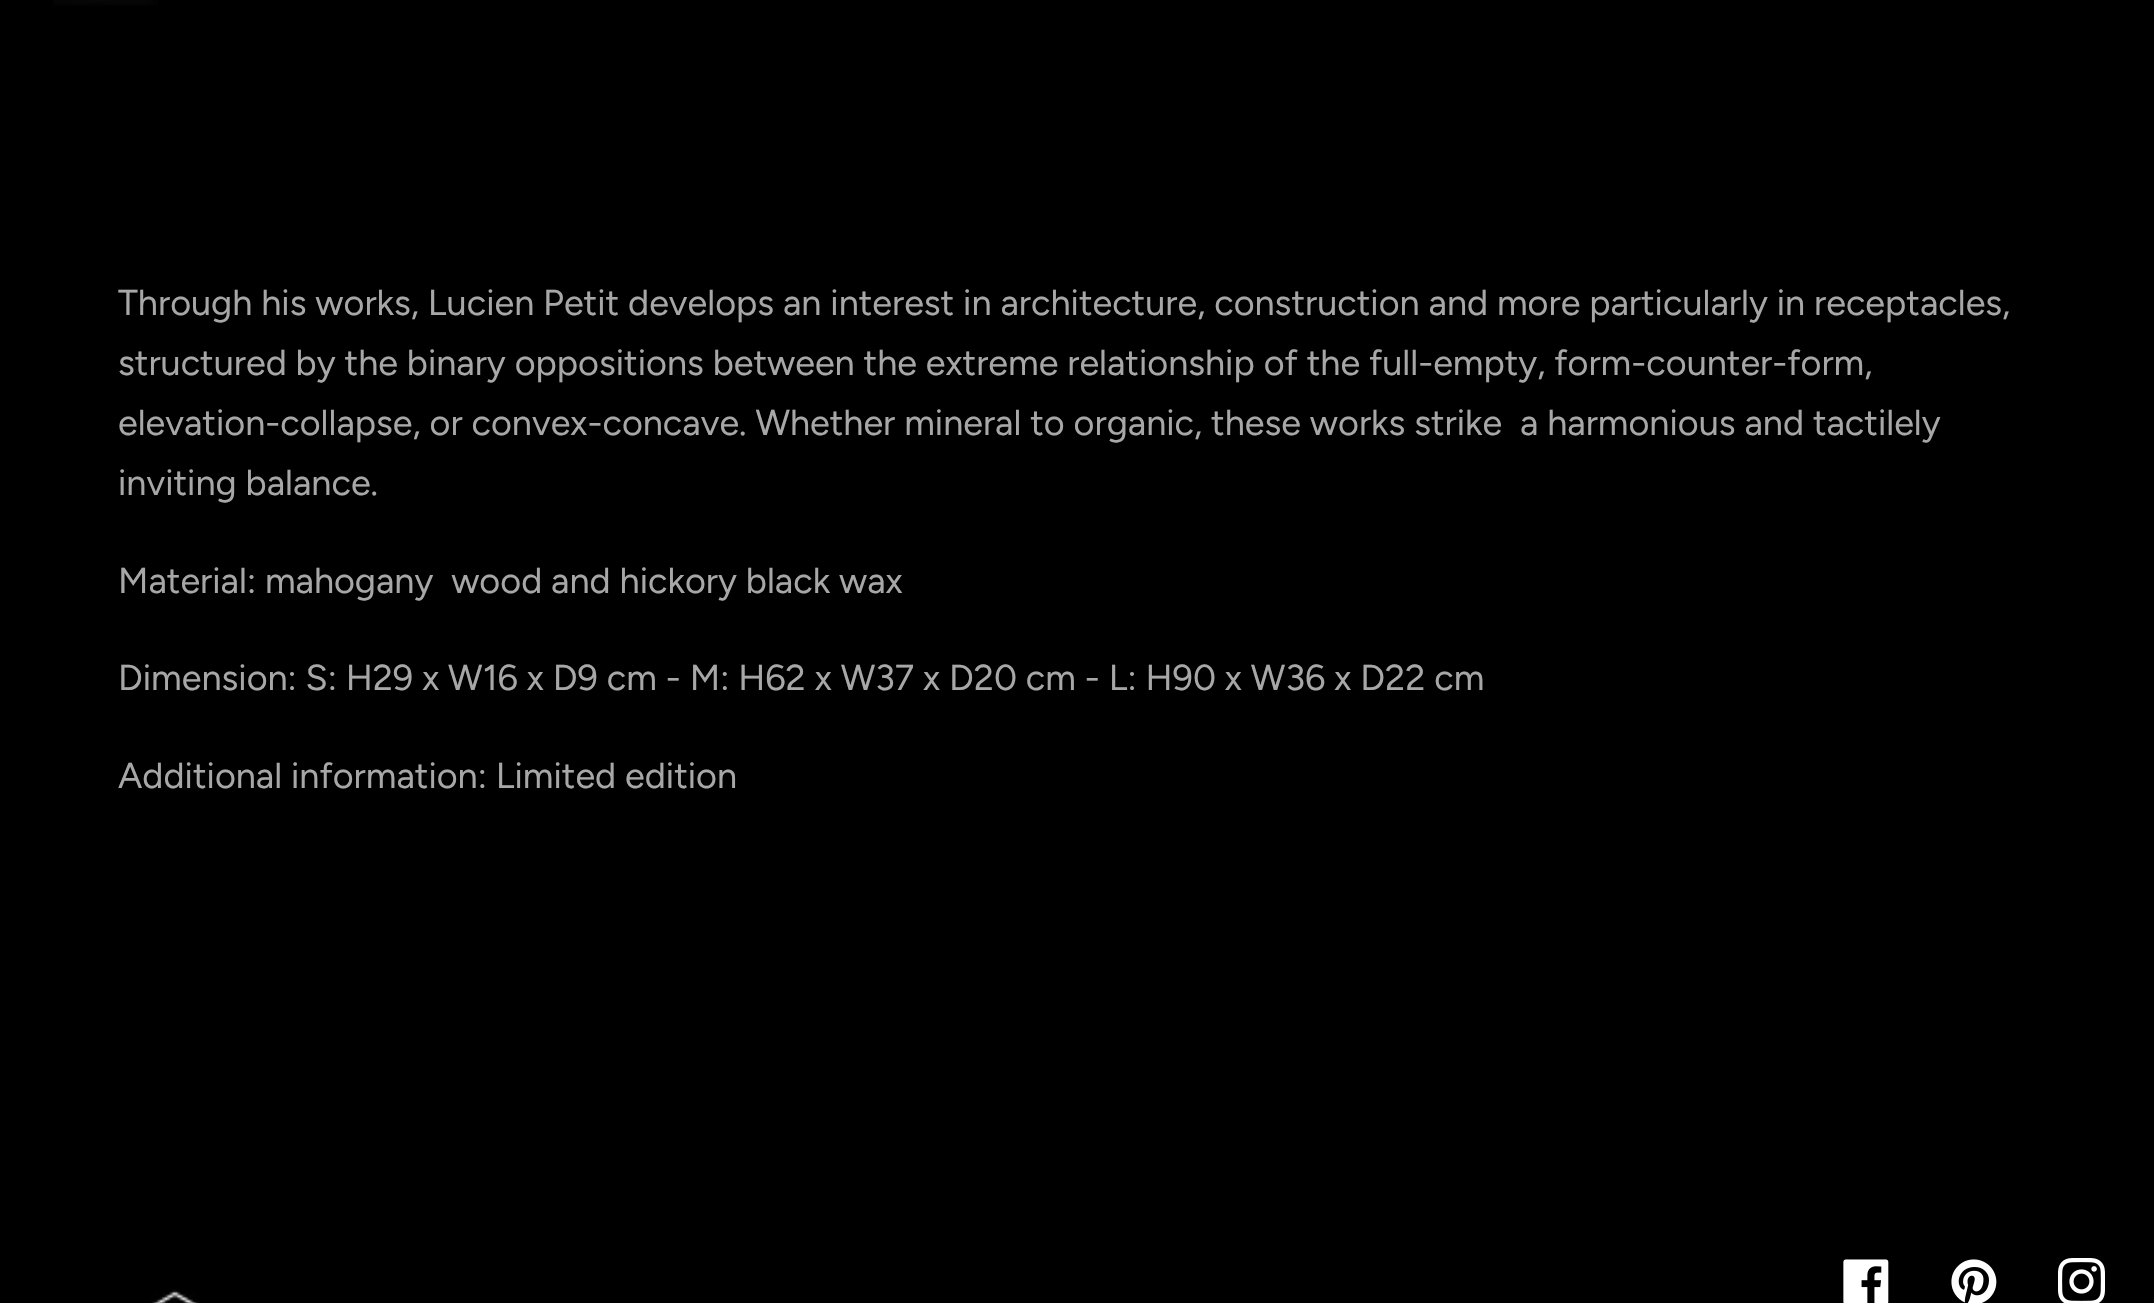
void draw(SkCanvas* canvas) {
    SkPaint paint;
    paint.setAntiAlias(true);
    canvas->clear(0xFF000000);
    canvas->drawImageRect(SkImages::DeferredFromEncodedData(SkData::MakeFromFileName("img1.png")), SkRect::MakeXYWH(53, 0, 105, 6), SkSamplingOptions());
    {
        const SkColor colors[] = {0x00000000, 0x33000000, 0xFF000000};
        const float stops[] = {0, 0.15f, 0.75f};
        const SkPoint ends[] = {{105, -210}, {105, 80}};
        paint.setShader(SkGradientShader::MakeLinear(ends, colors, stops, 3, SkTileMode::kClamp));
        paint.setAlpha(255);
    }
    canvas->drawRect(SkRect::MakeXYWH(53, 0, 105, 6), paint);
    SkFont font1(fontMgr->matchFamilyStyle("Figtree", SkFontStyle::Normal()), 36);
    font1.setSubpixel(true);
    paint.setShader(nullptr);
    paint.setColor(0xFFA7A7A7);
    canvas->drawString("Through his works, Lucien Petit develops an interest in architecture, construction and more particularly in receptacles,", 118, 315, font1, paint);
    canvas->drawString("structured by the binary oppositions between the extreme relationship of the full-empty, form-counter-form,", 118, 375, font1, paint);
    canvas->drawString("elevation-collapse, or convex-concave. Whether mineral to organic, these works strike  a harmonious and tactilely", 118, 435, font1, paint);
    canvas->drawString("inviting balance.", 118, 495, font1, paint);
    canvas->drawString("Material: mahogany  wood and hickory black wax", 118, 593, font1, paint);
    canvas->drawString("Dimension: S: H29 x W16 x D9 cm - M: H62 x W37 x D20 cm - L: H90 x W36 x D22 cm", 118, 690, font1, paint);
    canvas->drawString("Additional information: Limited edition", 118, 788, font1, paint);
    canvas->drawImageRect(SkImages::DeferredFromEncodedData(SkData::MakeFromFileName("img2.png")), SkRect::MakeXYWH(151, 1289, 48, 14), SkSamplingOptions());
    canvas->drawImageRect(SkImages::DeferredFromEncodedData(SkData::MakeFromFileName("img3.png")), SkRect::MakeXYWH(1843, 1259, 46, 44), SkSamplingOptions());
    canvas->drawImageRect(SkImages::DeferredFromEncodedData(SkData::MakeFromFileName("img4.png")), SkRect::MakeXYWH(1951, 1259, 46, 44), SkSamplingOptions());
    canvas->drawImageRect(SkImages::DeferredFromEncodedData(SkData::MakeFromFileName("img5.png")), SkRect::MakeXYWH(2058, 1258, 47, 45), SkSamplingOptions());
}
